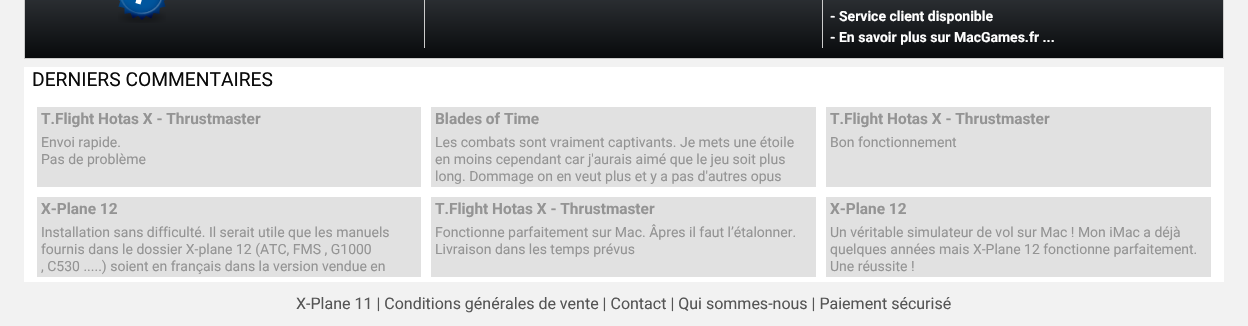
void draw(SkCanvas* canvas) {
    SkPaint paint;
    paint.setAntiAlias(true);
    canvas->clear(0xFFF2F2F2);
    {
        const SkColor colors[] = {0xFFB5BDC8, 0xFF4E5359, 0xFF080A0C};
        const float stops[] = {0, 0.15f, 1};
        const SkPoint ends[] = {{624, -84}, {624, 58}};
        paint.setShader(SkGradientShader::MakeLinear(ends, colors, stops, 3, SkTileMode::kClamp));
        paint.setAlpha(255);
    }
    canvas->drawRect(SkRect::MakeXYWH(25, 0, 1198, 58), paint);
    paint.setStyle(SkPaint::kStroke_Style);
    paint.setStrokeWidth(1);
    paint.setShader(nullptr);
    paint.setColor(0xFFCCCCCC);
    canvas->drawRect(SkRect::MakeXYWH(24.5f, -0.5f, 1199, 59), paint);
    paint.setStyle(SkPaint::kFill_Style);
    canvas->drawRect(SkRect::MakeXYWH(424, 0, 1, 48), paint);
    canvas->drawImageRect(SkImages::DeferredFromEncodedData(SkData::MakeFromFileName("img1.png")), SkRect::MakeXYWH(118, 0, 48, 23), SkSamplingOptions());
    canvas->drawRect(SkRect::MakeXYWH(822, 0, 1, 48), paint);
    SkFont font1(fontMgr->matchFamilyStyle("Roboto", SkFontStyle::Bold()), 14);
    font1.setSubpixel(true);
    paint.setColor(0xFFFFFFFF);
    canvas->drawString("- Service client disponible", 830, 21, font1, paint);
    canvas->drawString("- En savoir plus sur MacGames.fr ...", 830, 42, font1, paint);
    canvas->drawRect(SkRect::MakeXYWH(24, 67, 1200, 215), paint);
    SkFont font2(fontMgr->matchFamilyStyle("Roboto", SkFontStyle::Normal()), 19.25f);
    font2.setSubpixel(true);
    paint.setColor(0xFF0A0A0A);
    canvas->drawString("DERNIERS COMMENTAIRES", 32, 86, font2, paint);
    paint.setColor(0xFFE1E1E1);
    canvas->drawRect(SkRect::MakeXYWH(37, 107, 384, 80), paint);
    SkFont font3(fontMgr->matchFamilyStyle("Roboto", SkFontStyle::Bold()), 15.4f);
    font3.setSubpixel(true);
    paint.setColor(0xFF949494);
    canvas->drawString("T.Flight Hotas X - Thrustmaster", 41, 124, font3, paint);
    SkFont font4(fontMgr->matchFamilyStyle("Roboto", SkFontStyle::Normal()), 14);
    font4.setSubpixel(true);
    canvas->drawString("Envoi rapide.", 41, 147, font4, paint);
    canvas->drawString("Pas de problème", 41, 164, font4, paint);
    paint.setColor(0xFFE1E1E1);
    canvas->drawRect(SkRect::MakeXYWH(431, 107, 385, 80), paint);
    paint.setColor(0xFF949494);
    canvas->drawString("Blades of Time", 435, 124, font3, paint);
    canvas->drawString("Les combats sont vraiment captivants. Je mets une étoile", 435, 147, font4, paint);
    canvas->drawString("en moins cependant car j'aurais aimé que le jeu soit plus", 435, 164, font4, paint);
    canvas->drawString("long. Dommage on en veut plus et y a pas d'autres opus", 435, 181, font4, paint);
    paint.setColor(0xFFE1E1E1);
    canvas->drawRect(SkRect::MakeXYWH(826, 107, 385, 80), paint);
    paint.setColor(0xFF949494);
    canvas->drawString("T.Flight Hotas X - Thrustmaster", 830, 124, font3, paint);
    canvas->drawString("Bon fonctionnement", 830, 147, font4, paint);
    paint.setColor(0xFFE1E1E1);
    canvas->drawRect(SkRect::MakeXYWH(37, 197, 384, 80), paint);
    paint.setColor(0xFF949494);
    canvas->drawString("X-Plane 12", 41, 214, font3, paint);
    canvas->drawString("Installation sans difficulté. Il serait utile que les manuels", 41, 237, font4, paint);
    canvas->drawString("fournis dans le dossier X-plane 12 (ATC, FMS , G1000", 41, 254, font4, paint);
    canvas->drawString(", C530 .....) soient en français dans la version vendue en", 41, 271, font4, paint);
    paint.setColor(0xFFE1E1E1);
    canvas->drawRect(SkRect::MakeXYWH(431, 197, 385, 80), paint);
    paint.setColor(0xFF949494);
    canvas->drawString("T.Flight Hotas X - Thrustmaster", 435, 214, font3, paint);
    canvas->drawString("Fonctionne parfaitement sur Mac. Âpres il faut l’étalonner.", 435, 237, font4, paint);
    canvas->drawString("Livraison dans les temps prévus", 435, 254, font4, paint);
    paint.setColor(0xFFE1E1E1);
    canvas->drawRect(SkRect::MakeXYWH(826, 197, 385, 80), paint);
    paint.setColor(0xFF949494);
    canvas->drawString("X-Plane 12", 830, 214, font3, paint);
    canvas->drawString("Un véritable simulateur de vol sur Mac ! Mon iMac a déjà", 830, 237, font4, paint);
    canvas->drawString("quelques années mais X-Plane 12 fonctionne parfaitement.", 830, 254, font4, paint);
    canvas->drawString("Une réussite !", 830, 271, font4, paint);
    SkFont font5(fontMgr->matchFamilyStyle("Roboto", SkFontStyle::Normal()), 16);
    font5.setSubpixel(true);
    paint.setColor(0xFF555555);
    canvas->drawString("X-Plane 11 | Conditions générales de vente | Contact | Qui sommes-nous | Paiement sécurisé", 296, 309, font5, paint);
}
